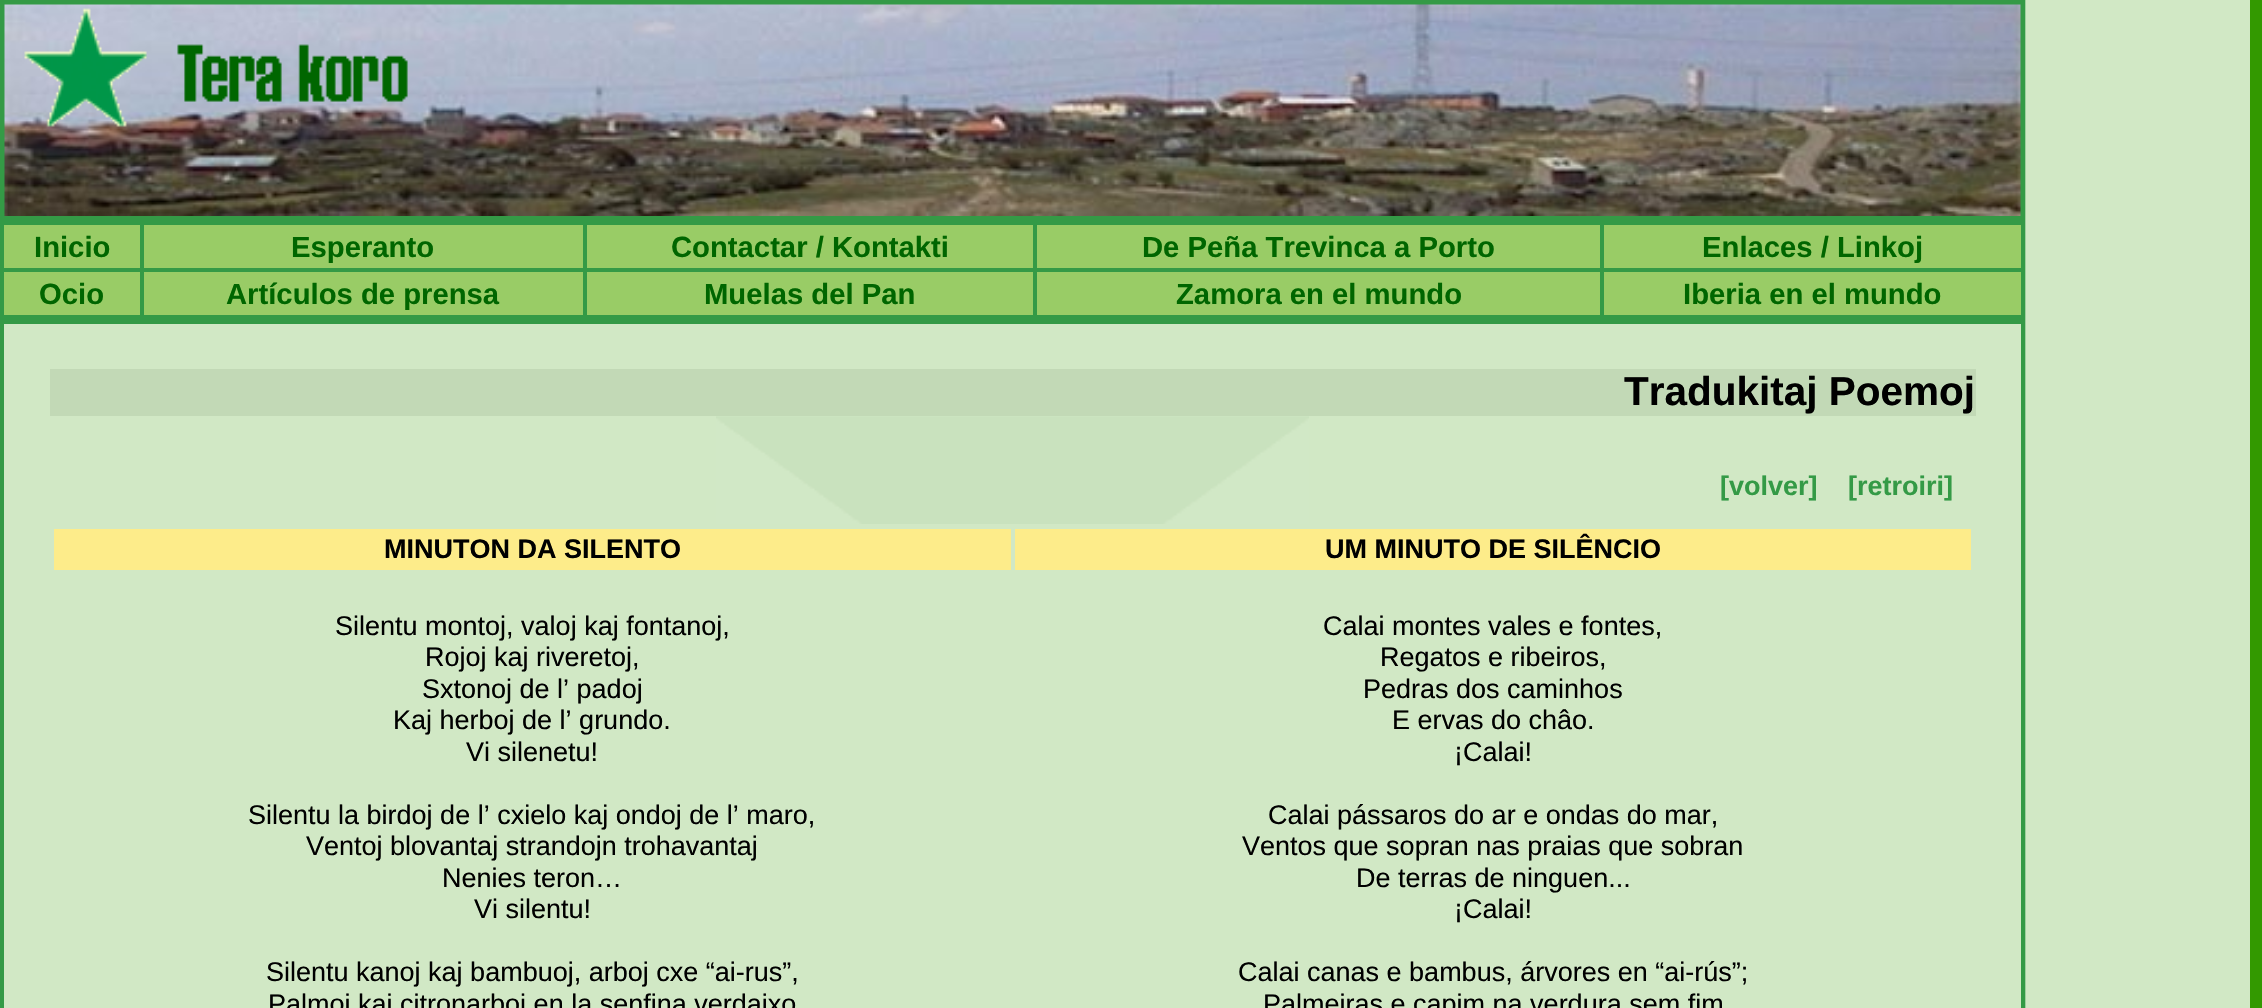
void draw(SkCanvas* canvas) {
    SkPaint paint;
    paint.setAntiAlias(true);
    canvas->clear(0xFF339900);
    canvas->drawImageRect(SkImages::DeferredFromEncodedData(SkData::MakeFromFileName("img1.png")), SkRect::MakeXYWH(2, 0, 2248, 1008), SkSamplingOptions());
    paint.setStyle(SkPaint::kStroke_Style);
    paint.setStrokeWidth(2);
    paint.setColor(0xFF349A46);
    canvas->drawRect(SkRect::MakeXYWH(1, 1, 2023, 219), paint);
    canvas->drawImageRect(SkImages::DeferredFromEncodedData(SkData::MakeFromFileName("img2.png")), SkRect::MakeXYWH(4, 4, 2017, 212), SkSamplingOptions());
    paint.setStyle(SkPaint::kFill_Style);
    canvas->drawRect(SkRect::MakeXYWH(0, 221, 2025, 99), paint);
    paint.setColor(0xFF99CC66);
    canvas->drawRect(SkRect::MakeXYWH(4, 225, 2017, 43), paint);
    paint.setStyle(SkPaint::kStroke_Style);
    paint.setColor(0xFF349A46);
    canvas->drawRect(SkRect::MakeXYWH(3, 224, 138, 45), paint);
    SkFont font1(fontMgr->matchFamilyStyle("Liberation Sans", SkFontStyle::Bold()), 29.25f);
    font1.setSubpixel(true);
    paint.setStyle(SkPaint::kFill_Style);
    paint.setColor(0xFF006600);
    canvas->drawString("Inicio", 34, 257, font1, paint);
    paint.setStyle(SkPaint::kStroke_Style);
    paint.setColor(0xFF349A46);
    canvas->drawRect(SkRect::MakeXYWH(143, 224, 441, 45), paint);
    paint.setStyle(SkPaint::kFill_Style);
    paint.setColor(0xFF006600);
    canvas->drawString("Esperanto", 291, 257, font1, paint);
    paint.setStyle(SkPaint::kStroke_Style);
    paint.setColor(0xFF349A46);
    canvas->drawRect(SkRect::MakeXYWH(586, 224, 448, 45), paint);
    paint.setStyle(SkPaint::kFill_Style);
    paint.setColor(0xFF006600);
    canvas->drawString("Contactar / Kontakti", 671, 257, font1, paint);
    paint.setStyle(SkPaint::kStroke_Style);
    paint.setColor(0xFF349A46);
    canvas->drawRect(SkRect::MakeXYWH(1036, 224, 565, 45), paint);
    paint.setStyle(SkPaint::kFill_Style);
    paint.setColor(0xFF006600);
    canvas->drawString("De Peña Trevinca a Porto", 1142, 257, font1, paint);
    paint.setStyle(SkPaint::kStroke_Style);
    paint.setColor(0xFF349A46);
    canvas->drawRect(SkRect::MakeXYWH(1603, 224, 419, 45), paint);
    paint.setStyle(SkPaint::kFill_Style);
    paint.setColor(0xFF006600);
    canvas->drawString("Enlaces / Linkoj", 1702, 257, font1, paint);
    paint.setColor(0xFF99CC66);
    canvas->drawRect(SkRect::MakeXYWH(4, 272, 2017, 43), paint);
    paint.setStyle(SkPaint::kStroke_Style);
    paint.setColor(0xFF349A46);
    canvas->drawRect(SkRect::MakeXYWH(3, 271, 138, 45), paint);
    paint.setStyle(SkPaint::kFill_Style);
    paint.setColor(0xFF006600);
    canvas->drawString("Ocio", 39, 304, font1, paint);
    paint.setStyle(SkPaint::kStroke_Style);
    paint.setColor(0xFF349A46);
    canvas->drawRect(SkRect::MakeXYWH(143, 271, 441, 45), paint);
    paint.setStyle(SkPaint::kFill_Style);
    paint.setColor(0xFF006600);
    canvas->drawString("Artículos de prensa", 226, 304, font1, paint);
    paint.setStyle(SkPaint::kStroke_Style);
    paint.setColor(0xFF349A46);
    canvas->drawRect(SkRect::MakeXYWH(586, 271, 448, 45), paint);
    paint.setStyle(SkPaint::kFill_Style);
    paint.setColor(0xFF006600);
    canvas->drawString("Muelas del Pan", 704, 304, font1, paint);
    paint.setStyle(SkPaint::kStroke_Style);
    paint.setColor(0xFF349A46);
    canvas->drawRect(SkRect::MakeXYWH(1036, 271, 565, 45), paint);
    paint.setStyle(SkPaint::kFill_Style);
    paint.setColor(0xFF006600);
    canvas->drawString("Zamora en el mundo", 1176, 304, font1, paint);
    paint.setStyle(SkPaint::kStroke_Style);
    paint.setColor(0xFF349A46);
    canvas->drawRect(SkRect::MakeXYWH(1603, 271, 419, 45), paint);
    paint.setStyle(SkPaint::kFill_Style);
    paint.setColor(0xFF006600);
    canvas->drawString("Iberia en el mundo", 1683, 304, font1, paint);
    paint.setStyle(SkPaint::kStroke_Style);
    paint.setColor(0xFF349A46);
    canvas->drawRect(SkRect::MakeXYWH(1, 321, 2023, 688), paint);
    canvas->drawImageRect(SkImages::DeferredFromEncodedData(SkData::MakeFromFileName("img3.png")), SkRect::MakeXYWH(24, 8, 384, 119), SkSamplingOptions());
    paint.setStyle(SkPaint::kFill_Style);
    paint.setColor(0xFFD1E8C5);
    canvas->drawRect(SkRect::MakeXYWH(4, 324, 2017, 684), paint);
    paint.setColor(0xFFC2D9B6);
    canvas->drawRect(SkRect::MakeXYWH(50, 369, 1926, 47), paint);
    SkFont font2(fontMgr->matchFamilyStyle("Liberation Sans", SkFontStyle::Bold()), 40.5f);
    font2.setSubpixel(true);
    paint.setColor(0xFF000000);
    canvas->drawString("Tradukitaj Poemoj", 1624, 405, font2, paint);
    canvas->drawImageRect(SkImages::DeferredFromEncodedData(SkData::MakeFromFileName("img4.png")), SkRect::MakeXYWH(716, 416, 593, 108), SkSamplingOptions());
    SkFont font3(fontMgr->matchFamilyStyle("Liberation Sans", SkFontStyle::Bold()), 27);
    font3.setSubpixel(true);
    paint.setColor(0xFF349A46);
    canvas->drawString("[volver]", 1720, 495, font3, paint);
    canvas->drawString("[retroiri]", 1848, 495, font3, paint);
    paint.setColor(0xFFFDEC8A);
    canvas->drawRect(SkRect::MakeXYWH(54, 529, 957, 41), paint);
    paint.setColor(0xFF000000);
    canvas->drawString("MINUTON DA SILENTO", 384, 558, font3, paint);
    paint.setColor(0xFFFDEC8A);
    canvas->drawRect(SkRect::MakeXYWH(1015, 529, 956, 41), paint);
    paint.setColor(0xFF000000);
    canvas->drawString("UM MINUTO DE SILÊNCIO", 1325, 558, font3, paint);
    SkFont font4(fontMgr->matchFamilyStyle("Liberation Sans", SkFontStyle::Normal()), 27);
    font4.setSubpixel(true);
    canvas->drawString("Silentu montoj, valoj kaj fontanoj,", 335, 635, font4, paint);
    canvas->drawString("Rojoj kaj riveretoj,", 425, 666, font4, paint);
    canvas->drawString("Sxtonoj de l’ padoj", 422, 698, font4, paint);
    canvas->drawString("Kaj herboj de l’ grundo.", 393, 729, font4, paint);
    canvas->drawString("Vi silenetu!", 466, 761, font4, paint);
    canvas->drawString("Silentu la birdoj de l’ cxielo kaj ondoj de l’ maro,", 248, 824, font4, paint);
    canvas->drawString("Ventoj blovantaj strandojn trohavantaj", 306, 855, font4, paint);
    canvas->drawString("Nenies teron…", 442, 887, font4, paint);
    canvas->drawString("Vi silentu!", 474, 918, font4, paint);
    canvas->drawString("Silentu kanoj kaj bambuoj, arboj cxe “ai-rus”,", 266, 981, font4, paint);
    canvas->drawString("Palmoj kaj citronarboj en la senfina verdajxo", 268, 1013, font4, paint);
    canvas->drawString("Calai montes vales e fontes,", 1323, 635, font4, paint);
    canvas->drawString("Regatos e ribeiros,", 1380, 666, font4, paint);
    canvas->drawString("Pedras dos caminhos", 1363, 698, font4, paint);
    canvas->drawString("E ervas do châo.", 1392, 729, font4, paint);
    canvas->drawString("¡Calai!", 1454, 761, font4, paint);
    canvas->drawString("Calai pássaros do ar e ondas do mar,", 1268, 824, font4, paint);
    canvas->drawString("Ventos que sopran nas praias que sobran", 1242, 855, font4, paint);
    canvas->drawString("De terras de ninguen...", 1356, 887, font4, paint);
    canvas->drawString("¡Calai!", 1454, 918, font4, paint);
    canvas->drawString("Calai canas e bambus, árvores en “ai-rús”;", 1238, 981, font4, paint);
    canvas->drawString("Palmeiras e capim na verdura sem fim", 1263, 1013, font4, paint);
}
